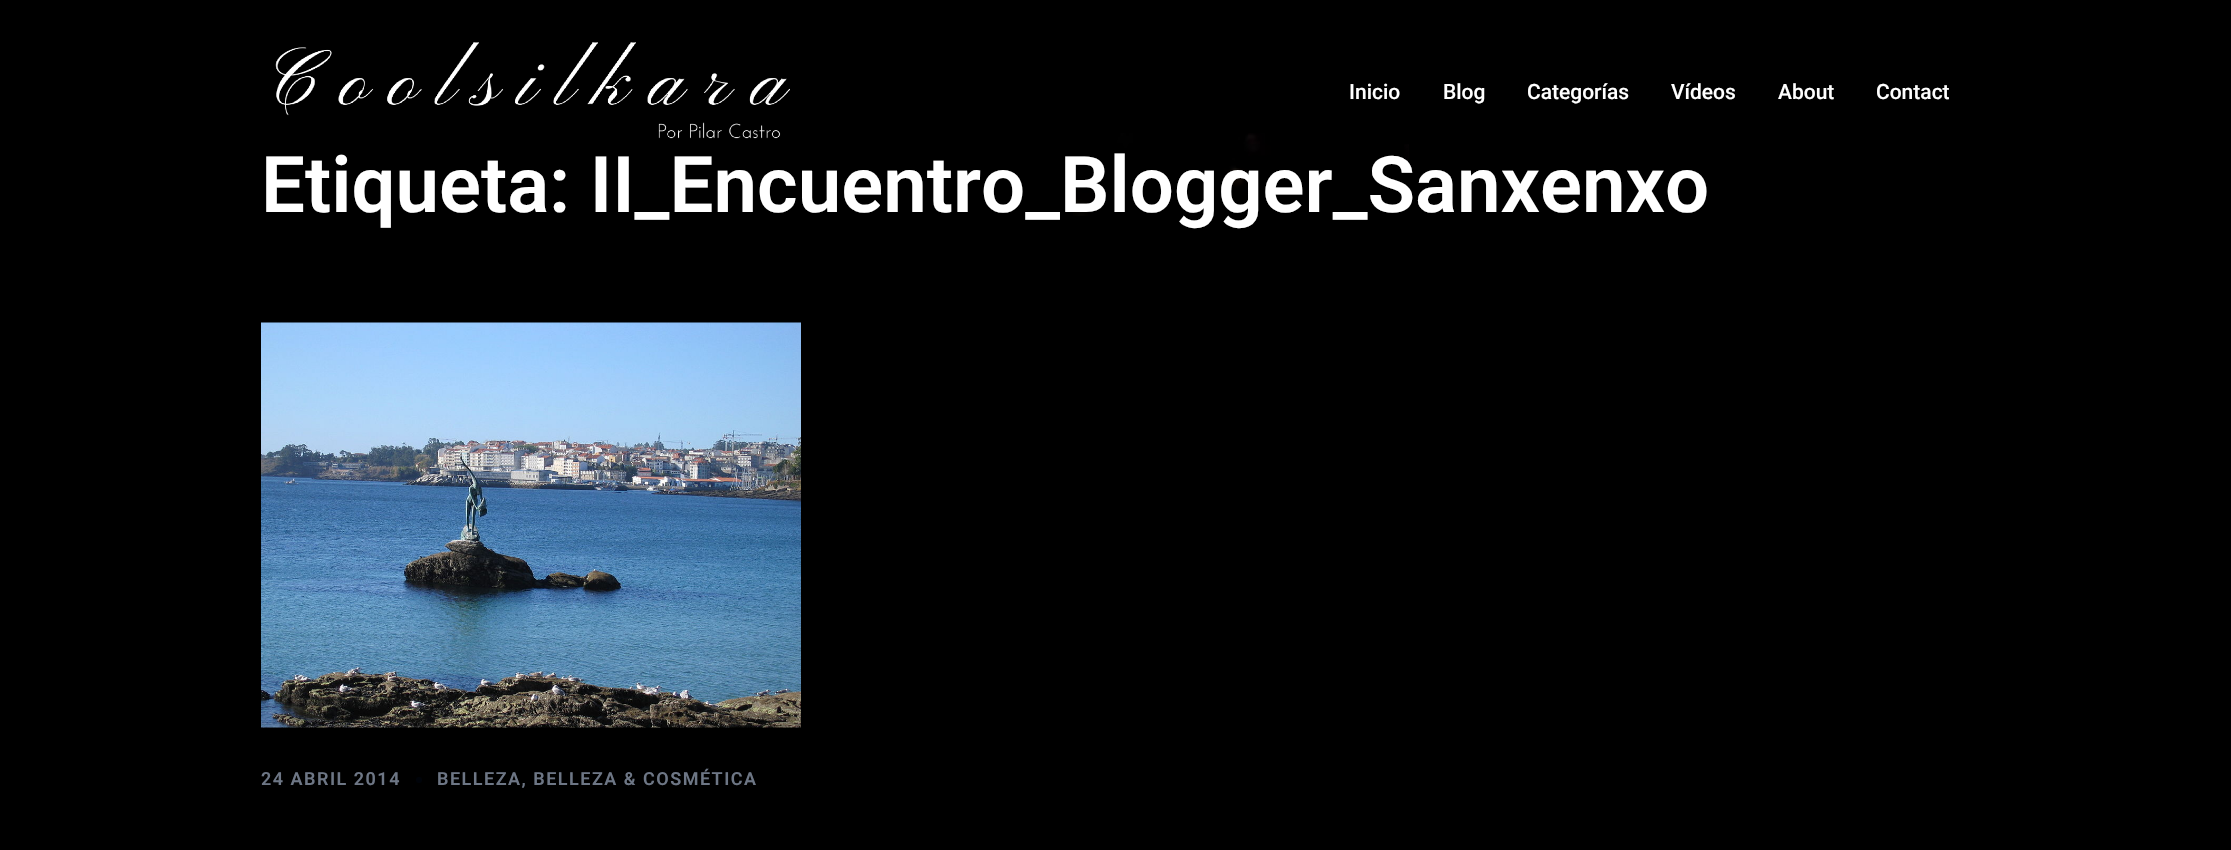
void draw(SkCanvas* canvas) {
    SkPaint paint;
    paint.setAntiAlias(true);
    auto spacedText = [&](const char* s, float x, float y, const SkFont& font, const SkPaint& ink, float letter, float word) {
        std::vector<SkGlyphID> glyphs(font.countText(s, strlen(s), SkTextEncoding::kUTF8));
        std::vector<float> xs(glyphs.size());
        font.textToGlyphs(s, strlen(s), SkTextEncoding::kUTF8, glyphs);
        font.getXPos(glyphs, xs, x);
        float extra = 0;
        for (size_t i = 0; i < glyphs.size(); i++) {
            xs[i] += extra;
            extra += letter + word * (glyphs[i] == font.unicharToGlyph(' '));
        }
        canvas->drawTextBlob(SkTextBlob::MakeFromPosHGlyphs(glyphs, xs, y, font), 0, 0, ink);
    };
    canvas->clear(0xFF000000);
    canvas->drawImageRect(SkImages::DeferredFromEncodedData(SkData::MakeFromFileName("img1.png")), SkRect::MakeXYWH(1073, 133, 336, 83), SkSamplingOptions());
    canvas->drawImageRect(SkImages::DeferredFromEncodedData(SkData::MakeFromFileName("img2.png")), SkRect::MakeXYWH(275, 42, 515, 97), SkSamplingOptions());
    SkFont font1(fontMgr->matchFamilyStyle("Roboto", SkFontStyle(500, SkFontStyle::kNormal_Width, SkFontStyle::kUpright_Slant)), 21);
    font1.setSubpixel(true);
    paint.setColor(0xFFFFFFFF);
    canvas->drawString("Inicio", 1349, 99, font1, paint);
    canvas->drawString("Blog", 1443, 99, font1, paint);
    canvas->drawString("Categorías", 1527, 99, font1, paint);
    canvas->drawString("Vídeos", 1671, 99, font1, paint);
    canvas->drawString("About", 1778, 99, font1, paint);
    canvas->drawString("Contact", 1876, 99, font1, paint);
    SkFont font2(fontMgr->matchFamilyStyle("Roboto", SkFontStyle(600, SkFontStyle::kNormal_Width, SkFontStyle::kUpright_Slant)), 78);
    font2.setSubpixel(true);
    canvas->drawString("Etiqueta: II_Encuentro_Blogger_Sanxenxo", 261, 212, font2, paint);
    canvas->drawImageRect(SkImages::DeferredFromEncodedData(SkData::MakeFromFileName("img3.png")), SkRect::MakeXYWH(261, 322, 540, 406), SkSamplingOptions());
    SkFont font3(fontMgr->matchFamilyStyle("Roboto", SkFontStyle(600, SkFontStyle::kNormal_Width, SkFontStyle::kUpright_Slant)), 18);
    font3.setSubpixel(true);
    paint.setColor(0xFF6D7685);
    spacedText("24 ABRIL 2014", 261, 785, font3, paint, 1.5f, 0);
    paint.setColor(0xFF000309);
    canvas->drawCircle(419, 780, 3, paint);
    paint.setColor(0xFF6D7685);
    spacedText("BELLEZA, BELLEZA & COSMÉTICA", 437, 785, font3, paint, 1.5f, 0);
}
